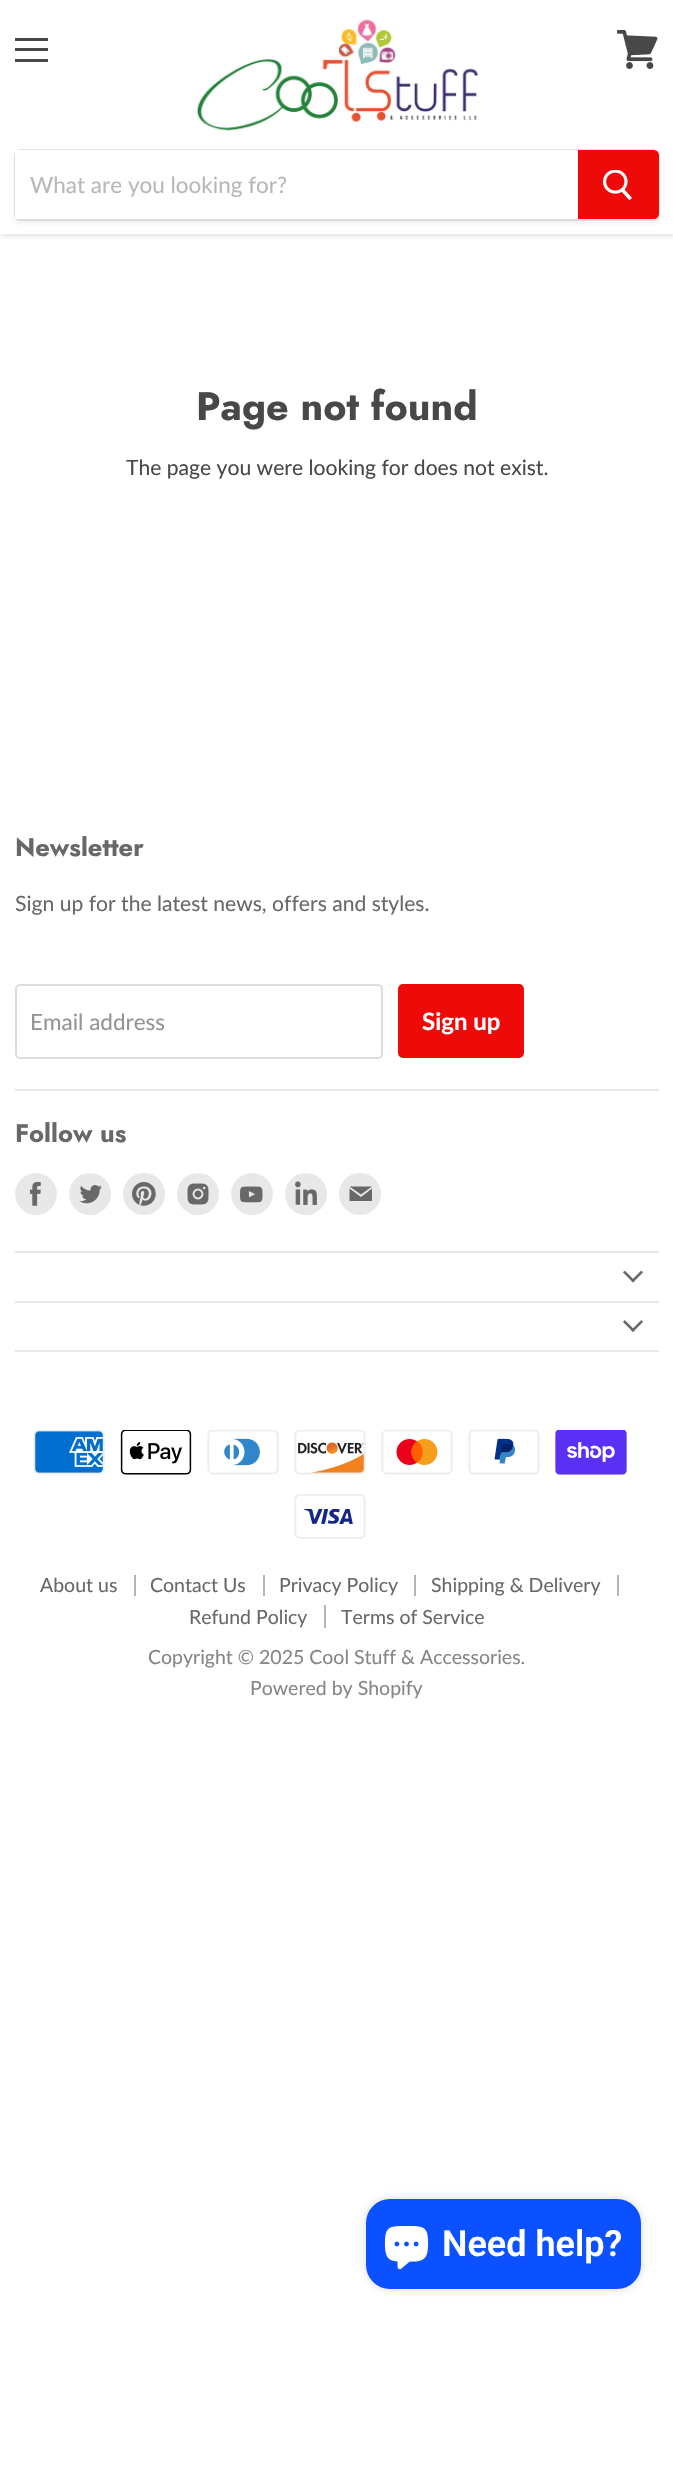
void draw(SkCanvas* canvas) {
    SkPaint paint;
    paint.setAntiAlias(true);
    canvas->clear(0xFFFFFFFF);
    canvas->save();
    canvas->clipRect(SkRect::MakeXYWH(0, 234, 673, 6));
    paint.setColor(0x40808080);
    paint.setMaskFilter(SkMaskFilter::MakeBlur(kNormal_SkBlurStyle, 3));
    canvas->drawRect(SkRect::MakeXYWH(0, 2, 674, 234), paint);
    paint.setMaskFilter(nullptr);
    canvas->restore();
    paint.setColor(0xFF484848);
    canvas->drawRect(SkRect::MakeXYWH(15, 38, 33, 3), paint);
    canvas->drawRect(SkRect::MakeXYWH(15, 48, 33, 3), paint);
    canvas->drawRect(SkRect::MakeXYWH(15, 59, 33, 3), paint);
    canvas->drawImageRect(SkImages::DeferredFromEncodedData(SkData::MakeFromFileName("img1.png")), SkRect::MakeXYWH(617, 30, 41, 39), SkSamplingOptions());
    canvas->drawImageRect(SkImages::DeferredFromEncodedData(SkData::MakeFromFileName("img2.png")), SkRect::MakeXYWH(196, 19, 283, 112), SkSamplingOptions());
    paint.setColor(0x1C808080);
    paint.setMaskFilter(SkMaskFilter::MakeBlur(kNormal_SkBlurStyle, 2));
    canvas->drawRoundRect(SkRect::MakeXYWH(14, 152, 646, 72), 6, 6, paint);
    paint.setMaskFilter(nullptr);
    paint.setStyle(SkPaint::kStroke_Style);
    paint.setStrokeWidth(2);
    paint.setColor(0x33808080);
    canvas->drawRoundRect(SkRect::MakeXYWH(15, 150, 644, 70), 5, 5, paint);
    paint.setStyle(SkPaint::kFill_Style);
    paint.setColor(0xFFFFFFFF);
    canvas->drawRect(SkRect::MakeXYWH(15, 150, 563, 69), paint);
    SkFont font1(fontMgr->matchFamilyStyle("Lato", SkFontStyle::Normal()), 22.5f);
    font1.setSubpixel(true);
    paint.setColor(0xFFB8B8B8);
    canvas->drawString("What are you looking for?", 30, 193, font1, paint);
    paint.setColor(0xFFEF0A0A);
    canvas->drawPath(SkPathBuilder().moveTo(579, 151).lineTo(654, 151).cubicTo(656, 151, 658, 153, 658, 155).lineTo(658, 214).cubicTo(658, 216, 656, 218, 654, 218).lineTo(579, 218).close().detach(), paint);
    paint.setStyle(SkPaint::kStroke_Style);
    canvas->drawPath(SkPathBuilder().moveTo(579, 151).lineTo(654, 151).cubicTo(656, 151, 658, 153, 658, 155).lineTo(658, 214).cubicTo(658, 216, 656, 218, 654, 218).lineTo(579, 218).close().detach(), paint);
    canvas->drawImageRect(SkImages::DeferredFromEncodedData(SkData::MakeFromFileName("img3.png")), SkRect::MakeXYWH(603, 170, 29, 31), SkSamplingOptions());
    SkFont font2(fontMgr->matchFamilyStyle("Jost", SkFontStyle::Bold()), 39.5f);
    font2.setSubpixel(true);
    paint.setStyle(SkPaint::kFill_Style);
    paint.setColor(0xFF484848);
    canvas->drawString("Page not found", 196, 420, font2, paint);
    SkFont font3(fontMgr->matchFamilyStyle("Lato", SkFontStyle::Normal()), 21.1f);
    font3.setSubpixel(true);
    canvas->drawString("The page you were looking for does not exist.", 126, 475, font3, paint);
    paint.setColor(0xFFE8E8E8);
    canvas->drawRect(SkRect::MakeXYWH(15, 1089, 644, 2), paint);
    SkFont font4(fontMgr->matchFamilyStyle("Jost", SkFontStyle::Bold()), 25.5f);
    font4.setSubpixel(true);
    paint.setColor(0xFF686868);
    canvas->drawString("Newsletter", 15, 856, font4, paint);
    canvas->drawString("Sign up for the latest news, offers and styles.", 15, 911, font3, paint);
    paint.setStyle(SkPaint::kStroke_Style);
    paint.setColor(0xFFDDDDDD);
    canvas->drawRoundRect(SkRect::MakeXYWH(16, 985, 366, 73), 4, 4, paint);
    paint.setStyle(SkPaint::kFill_Style);
    paint.setColor(0xFF949494);
    canvas->drawString("Email address", 30, 1030, font1, paint);
    paint.setColor(0xFFEF0A0A);
    canvas->drawRoundRect(SkRect::MakeXYWH(399, 985, 124, 72), 4, 4, paint);
    paint.setStyle(SkPaint::kStroke_Style);
    canvas->drawRoundRect(SkRect::MakeXYWH(399, 985, 124, 72), 4, 4, paint);
    SkFont font5(fontMgr->matchFamilyStyle("Lato", SkFontStyle::Bold()), 24);
    font5.setSubpixel(true);
    paint.setStyle(SkPaint::kFill_Style);
    paint.setColor(0xFFFFFFFF);
    canvas->drawString("Sign up", 422, 1030, font5, paint);
    paint.setColor(0xFFE8E8E8);
    canvas->drawRect(SkRect::MakeXYWH(15, 1251, 644, 2), paint);
    paint.setColor(0xFF686868);
    canvas->drawString("Follow us", 15, 1142, font4, paint);
    paint.setColor(0xFFE8E8E8);
    canvas->drawCircle(36, 1194, 21, paint);
    canvas->drawImageRect(SkImages::DeferredFromEncodedData(SkData::MakeFromFileName("img4.png")), SkRect::MakeXYWH(30, 1182, 11, 24), SkSamplingOptions());
    canvas->drawCircle(90, 1194, 21, paint);
    canvas->drawImageRect(SkImages::DeferredFromEncodedData(SkData::MakeFromFileName("img5.png")), SkRect::MakeXYWH(79, 1185, 23, 19), SkSamplingOptions());
    canvas->drawCircle(144, 1194, 21, paint);
    canvas->drawImageRect(SkImages::DeferredFromEncodedData(SkData::MakeFromFileName("img6.png")), SkRect::MakeXYWH(132, 1182, 24, 24), SkSamplingOptions());
    canvas->drawCircle(198, 1194, 21, paint);
    canvas->drawImageRect(SkImages::DeferredFromEncodedData(SkData::MakeFromFileName("img7.png")), SkRect::MakeXYWH(187, 1183, 22, 22), SkSamplingOptions());
    canvas->drawCircle(252, 1194, 21, paint);
    canvas->drawImageRect(SkImages::DeferredFromEncodedData(SkData::MakeFromFileName("img8.png")), SkRect::MakeXYWH(240, 1186, 23, 17), SkSamplingOptions());
    canvas->drawCircle(306, 1194, 21, paint);
    canvas->drawImageRect(SkImages::DeferredFromEncodedData(SkData::MakeFromFileName("img9.png")), SkRect::MakeXYWH(295, 1181, 22, 24), SkSamplingOptions());
    canvas->drawCircle(360, 1194, 21, paint);
    paint.setColor(0xFF686868);
    canvas->drawPath(SkPathBuilder(SkPathFillType::kEvenOdd).moveTo(372, 1186.5f).lineTo(349.5f, 1186.5f).lineTo(361, 1194.5f).close().moveTo(361, 1197).lineTo(349.5f, 1188.5f).lineTo(349.5f, 1201).lineTo(372, 1201).lineTo(372, 1188.5f).close().detach(), paint);
    paint.setColor(0xFFE8E8E8);
    canvas->drawRect(SkRect::MakeXYWH(15, 1301, 644, 2), paint);
    canvas->drawImageRect(SkImages::DeferredFromEncodedData(SkData::MakeFromFileName("img10.png")), SkRect::MakeXYWH(623, 1271, 20, 12), SkSamplingOptions());
    canvas->drawRect(SkRect::MakeXYWH(15, 1350, 644, 2), paint);
    canvas->drawImageRect(SkImages::DeferredFromEncodedData(SkData::MakeFromFileName("img11.png")), SkRect::MakeXYWH(623, 1320, 20, 12), SkSamplingOptions());
    canvas->drawImageRect(SkImages::DeferredFromEncodedData(SkData::MakeFromFileName("img12.png")), SkRect::MakeXYWH(33, 1430, 72, 45), SkSamplingOptions());
    canvas->drawImageRect(SkImages::DeferredFromEncodedData(SkData::MakeFromFileName("img13.png")), SkRect::MakeXYWH(120, 1430, 72, 45), SkSamplingOptions());
    canvas->drawImageRect(SkImages::DeferredFromEncodedData(SkData::MakeFromFileName("img14.png")), SkRect::MakeXYWH(207, 1430, 72, 45), SkSamplingOptions());
    canvas->drawImageRect(SkImages::DeferredFromEncodedData(SkData::MakeFromFileName("img15.png")), SkRect::MakeXYWH(294, 1430, 72, 45), SkSamplingOptions());
    canvas->drawImageRect(SkImages::DeferredFromEncodedData(SkData::MakeFromFileName("img16.png")), SkRect::MakeXYWH(381, 1430, 72, 45), SkSamplingOptions());
    canvas->drawImageRect(SkImages::DeferredFromEncodedData(SkData::MakeFromFileName("img17.png")), SkRect::MakeXYWH(468, 1430, 72, 45), SkSamplingOptions());
    canvas->drawImageRect(SkImages::DeferredFromEncodedData(SkData::MakeFromFileName("img18.png")), SkRect::MakeXYWH(555, 1430, 72, 45), SkSamplingOptions());
    canvas->drawImageRect(SkImages::DeferredFromEncodedData(SkData::MakeFromFileName("img19.png")), SkRect::MakeXYWH(294, 1494, 72, 45), SkSamplingOptions());
    paint.setColor(0xFFB4B4B4);
    canvas->drawRect(SkRect::MakeXYWH(134, 1575, 2, 21), paint);
    SkFont font6(fontMgr->matchFamilyStyle("Lato", SkFontStyle::Normal()), 19.5f);
    font6.setSubpixel(true);
    paint.setColor(0xFF686868);
    canvas->drawString("About us", 40, 1592, font6, paint);
    paint.setColor(0xFFB4B4B4);
    canvas->drawRect(SkRect::MakeXYWH(263, 1575, 2, 21), paint);
    paint.setColor(0xFF686868);
    canvas->drawString("Contact Us", 150, 1592, font6, paint);
    paint.setColor(0xFFB4B4B4);
    canvas->drawRect(SkRect::MakeXYWH(414, 1575, 2, 21), paint);
    paint.setColor(0xFF686868);
    canvas->drawString("Privacy Policy", 279, 1592, font6, paint);
    paint.setColor(0xFFB4B4B4);
    canvas->drawRect(SkRect::MakeXYWH(617, 1575, 2, 21), paint);
    paint.setColor(0xFF686868);
    canvas->drawString("Shipping & Delivery", 431, 1592, font6, paint);
    paint.setColor(0xFFB4B4B4);
    canvas->drawRect(SkRect::MakeXYWH(324, 1605, 2, 23), paint);
    paint.setColor(0xFF686868);
    canvas->drawString("Refund Policy", 189, 1624, font6, paint);
    canvas->drawString("Terms of Service", 341, 1624, font6, paint);
    paint.setColor(0xFF868686);
    canvas->drawString("Copyright © 2025 Cool Stuff & Accessories.", 148, 1664, font6, paint);
    canvas->drawString("Powered by Shopify", 250, 1695, font6, paint);
    paint.setColor(0x26000000);
    paint.setMaskFilter(SkMaskFilter::MakeBlur(kNormal_SkBlurStyle, 4));
    canvas->drawRoundRect(SkRect::MakeXYWH(366, 2199, 275, 90), 24, 24, paint);
    paint.setMaskFilter(nullptr);
    paint.setColor(0xFF0C51FF);
    canvas->drawRoundRect(SkRect::MakeXYWH(366, 2199, 275, 90), 24, 24, paint);
    canvas->drawImageRect(SkImages::DeferredFromEncodedData(SkData::MakeFromFileName("img20.png")), SkRect::MakeXYWH(384, 2226, 45, 44), SkSamplingOptions());
    SkFont font7(fontMgr->matchFamilyStyle("Roboto", SkFontStyle(600, SkFontStyle::kNormal_Width, SkFontStyle::kUpright_Slant)), 36);
    font7.setSubpixel(true);
    paint.setColor(0xFFFFFFFF);
    canvas->drawString("Need help?", 442, 2256, font7, paint);
}
